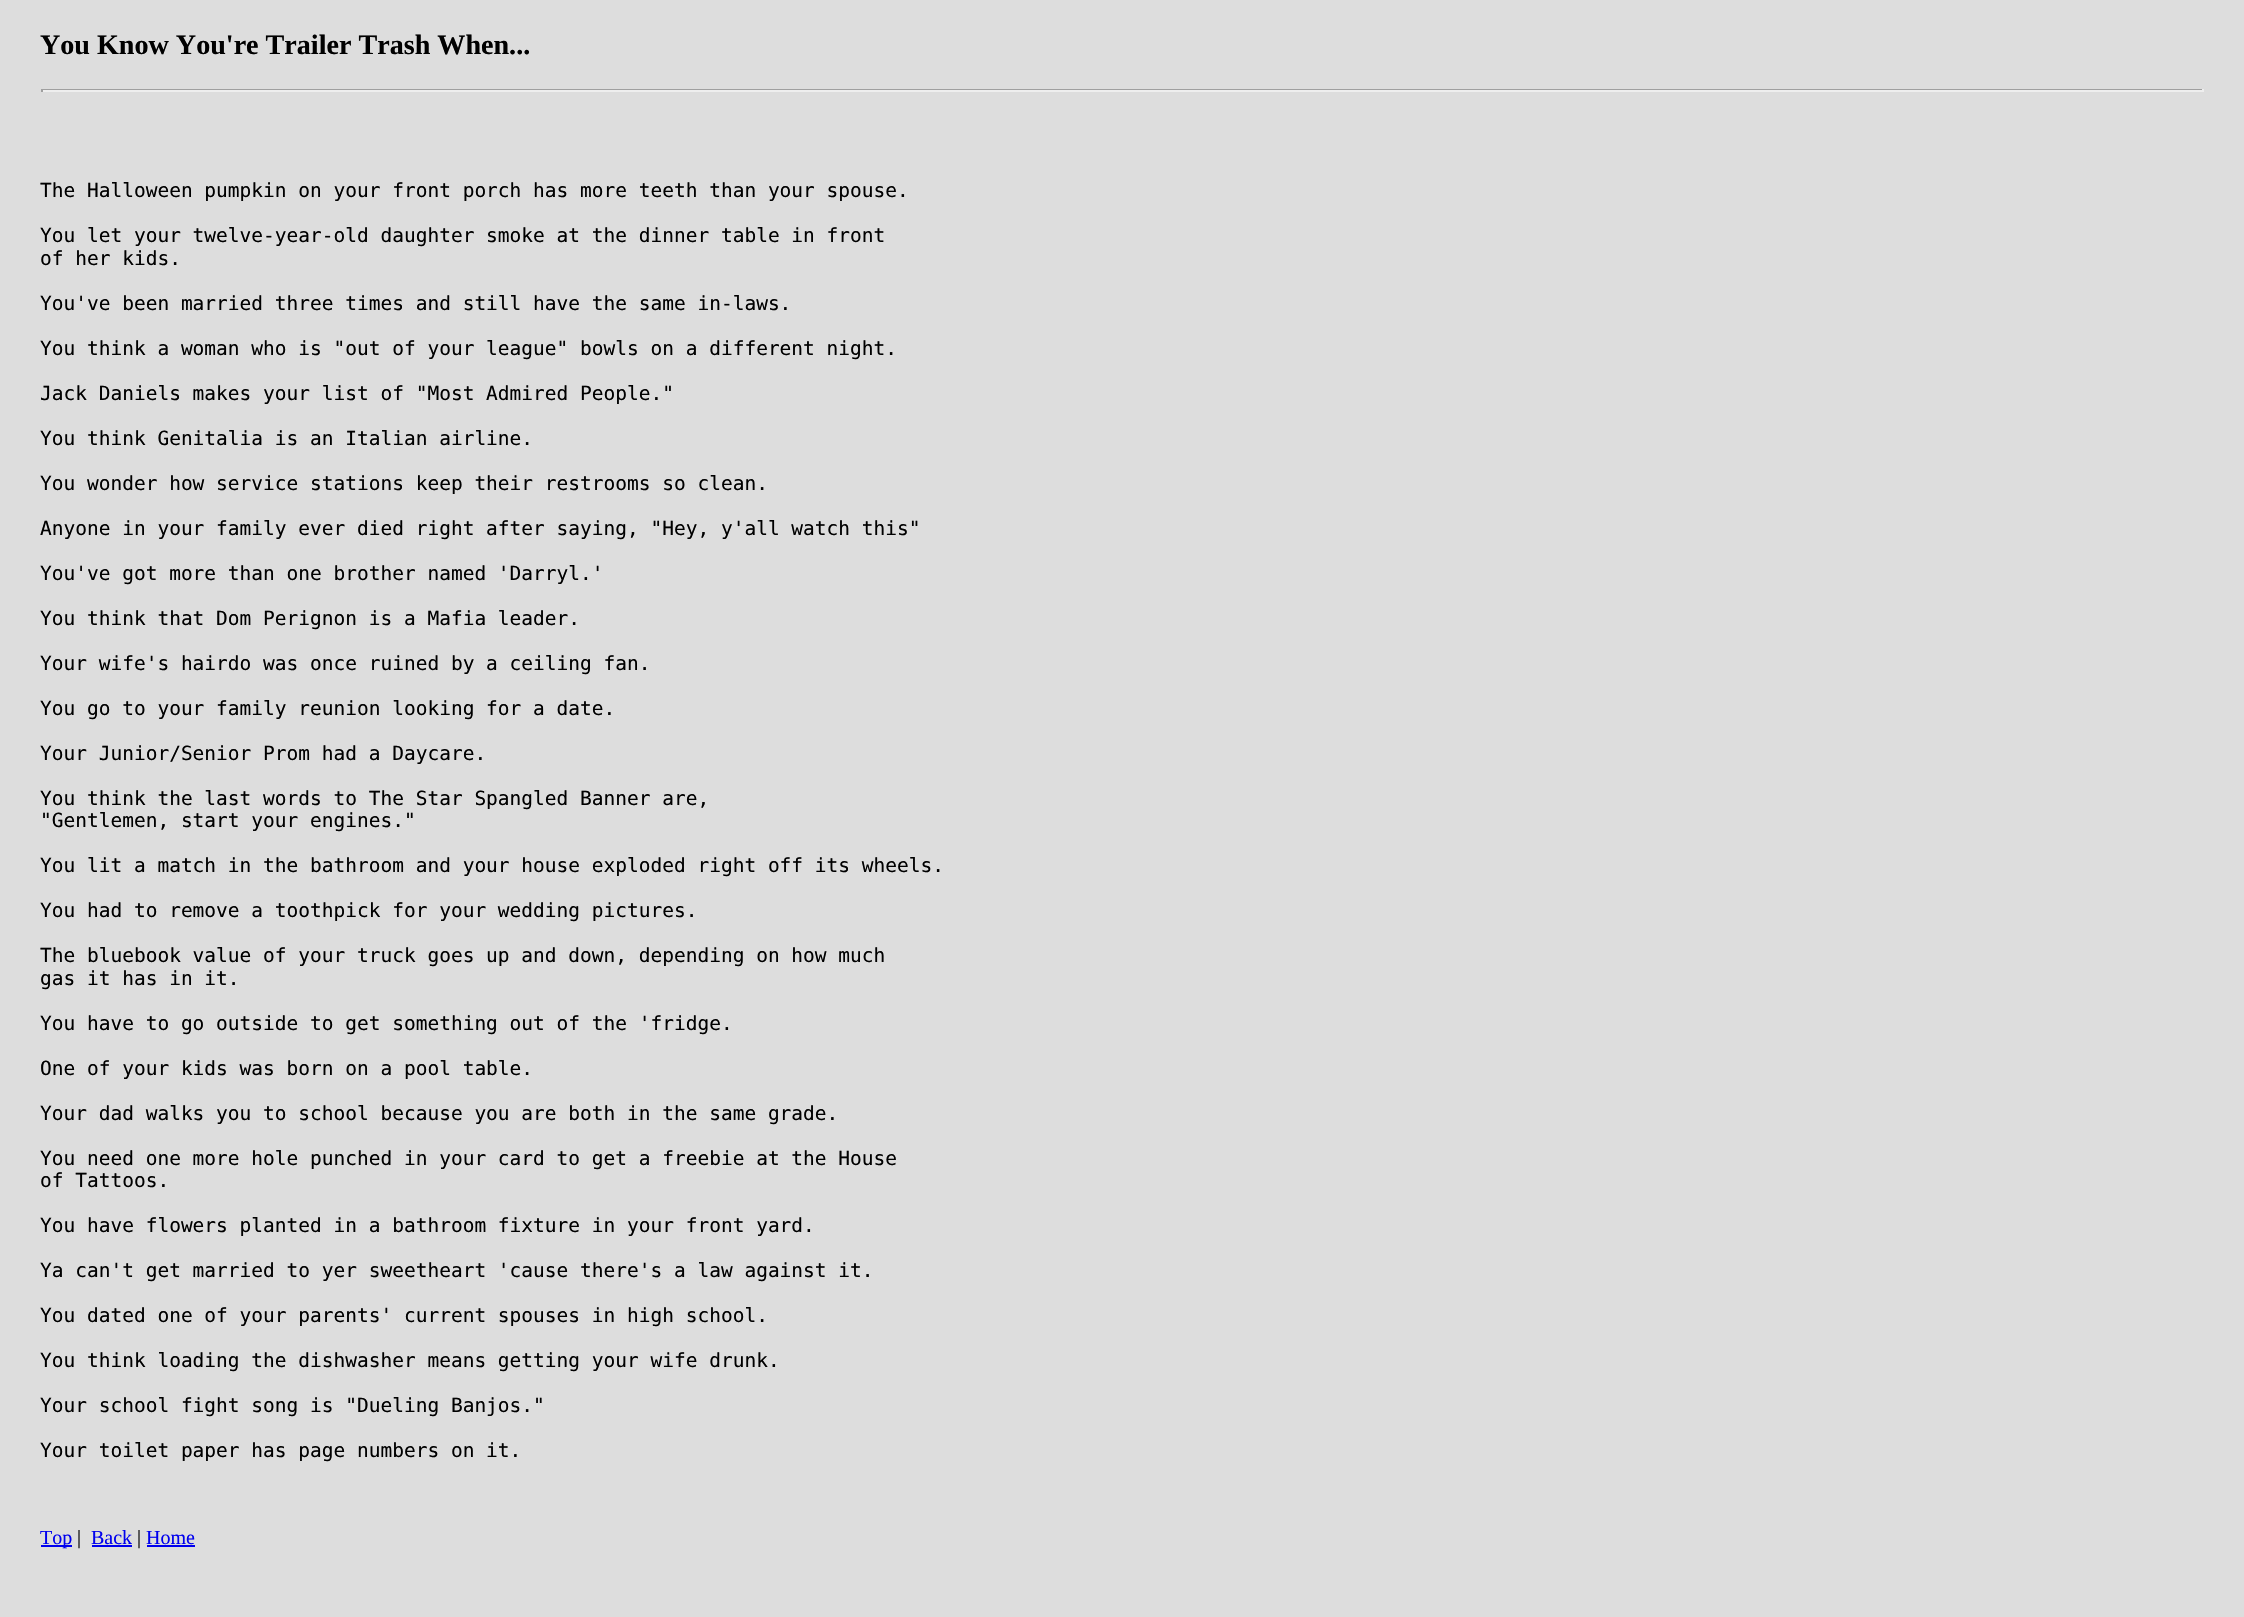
void draw(SkCanvas* canvas) {
    SkPaint paint;
    paint.setAntiAlias(true);
    canvas->clear(0xFFDDDDDD);
    SkFont font1(fontMgr->matchFamilyStyle("Liberation Serif", SkFontStyle::Bold()), 28.1f);
    font1.setSubpixel(true);
    paint.setColor(0xFF000000);
    canvas->drawString("You Know You're Trailer Trash When...", 40, 54, font1, paint);
    paint.setColor(0xFF9F9F9F);
    canvas->drawRect(SkRect::MakeXYWH(41, 89, 2163, 1), paint);
    paint.setColor(0xFFEEEEEE);
    canvas->drawRect(SkRect::MakeXYWH(2202, 89, 2, 3), paint);
    canvas->drawRect(SkRect::MakeXYWH(41, 90, 2163, 2), paint);
    paint.setColor(0xFF9F9F9F);
    canvas->drawRect(SkRect::MakeXYWH(41, 89, 2, 3), paint);
    SkFont font2(fontMgr->matchFamilyStyle("DejaVu Sans Mono", SkFontStyle::Normal()), 19.5f);
    font2.setSubpixel(true);
    paint.setColor(0xFF000000);
    canvas->drawString("The Halloween pumpkin on your front porch has more teeth than your spouse.", 40, 197, font2, paint);
    canvas->drawString("You let your twelve-year-old daughter smoke at the dinner table in front", 40, 242, font2, paint);
    canvas->drawString("of her kids.", 40, 265, font2, paint);
    canvas->drawString("You've been married three times and still have the same in-laws.", 40, 310, font2, paint);
    canvas->drawString("You think a woman who is \"out of your league\" bowls on a different night.", 40, 355, font2, paint);
    canvas->drawString("Jack Daniels makes your list of \"Most Admired People.\"", 40, 400, font2, paint);
    canvas->drawString("You think Genitalia is an Italian airline.", 40, 445, font2, paint);
    canvas->drawString("You wonder how service stations keep their restrooms so clean.", 40, 490, font2, paint);
    canvas->drawString("Anyone in your family ever died right after saying, \"Hey, y'all watch this\"", 40, 535, font2, paint);
    canvas->drawString("You've got more than one brother named 'Darryl.'", 40, 580, font2, paint);
    canvas->drawString("You think that Dom Perignon is a Mafia leader.", 40, 625, font2, paint);
    canvas->drawString("Your wife's hairdo was once ruined by a ceiling fan.", 40, 670, font2, paint);
    canvas->drawString("You go to your family reunion looking for a date.", 40, 715, font2, paint);
    canvas->drawString("Your Junior/Senior Prom had a Daycare.", 40, 760, font2, paint);
    canvas->drawString("You think the last words to The Star Spangled Banner are,", 40, 805, font2, paint);
    canvas->drawString("\"Gentlemen, start your engines.\"", 40, 827, font2, paint);
    canvas->drawString("You lit a match in the bathroom and your house exploded right off its wheels.", 40, 872, font2, paint);
    canvas->drawString("You had to remove a toothpick for your wedding pictures.", 40, 917, font2, paint);
    canvas->drawString("The bluebook value of your truck goes up and down, depending on how much", 40, 962, font2, paint);
    canvas->drawString("gas it has in it.", 40, 985, font2, paint);
    canvas->drawString("You have to go outside to get something out of the 'fridge.", 40, 1030, font2, paint);
    canvas->drawString("One of your kids was born on a pool table.", 40, 1075, font2, paint);
    canvas->drawString("Your dad walks you to school because you are both in the same grade.", 40, 1120, font2, paint);
    canvas->drawString("You need one more hole punched in your card to get a freebie at the House", 40, 1165, font2, paint);
    canvas->drawString("of Tattoos.", 40, 1187, font2, paint);
    canvas->drawString("You have flowers planted in a bathroom fixture in your front yard.", 40, 1232, font2, paint);
    canvas->drawString("Ya can't get married to yer sweetheart 'cause there's a law against it.", 40, 1277, font2, paint);
    canvas->drawString("You dated one of your parents' current spouses in high school.", 40, 1322, font2, paint);
    canvas->drawString("You think loading the dishwasher means getting your wife drunk.", 40, 1367, font2, paint);
    canvas->drawString("Your school fight song is \"Dueling Banjos.\"", 40, 1412, font2, paint);
    canvas->drawString("Your toilet paper has page numbers on it.", 40, 1457, font2, paint);
    paint.setColor(0xFF0000EE);
    canvas->drawRect(SkRect::MakeXYWH(41, 1545, 31, 2), paint);
    SkFont font3(fontMgr->matchFamilyStyle("Liberation Serif", SkFontStyle::Normal()), 20);
    font3.setSubpixel(true);
    canvas->drawString("Top", 40, 1544, font3, paint);
    paint.setColor(0xFF000000);
    canvas->drawString("|", 77, 1544, font3, paint);
    paint.setColor(0xFF0000EE);
    canvas->drawString("Back", 91, 1544, font3, paint);
    canvas->drawRect(SkRect::MakeXYWH(92, 1545, 40, 2), paint);
    paint.setColor(0xFF000000);
    canvas->drawString("|", 137, 1544, font3, paint);
    paint.setColor(0xFF0000EE);
    canvas->drawString("Home", 146, 1544, font3, paint);
    canvas->drawRect(SkRect::MakeXYWH(147, 1545, 48, 2), paint);
}
